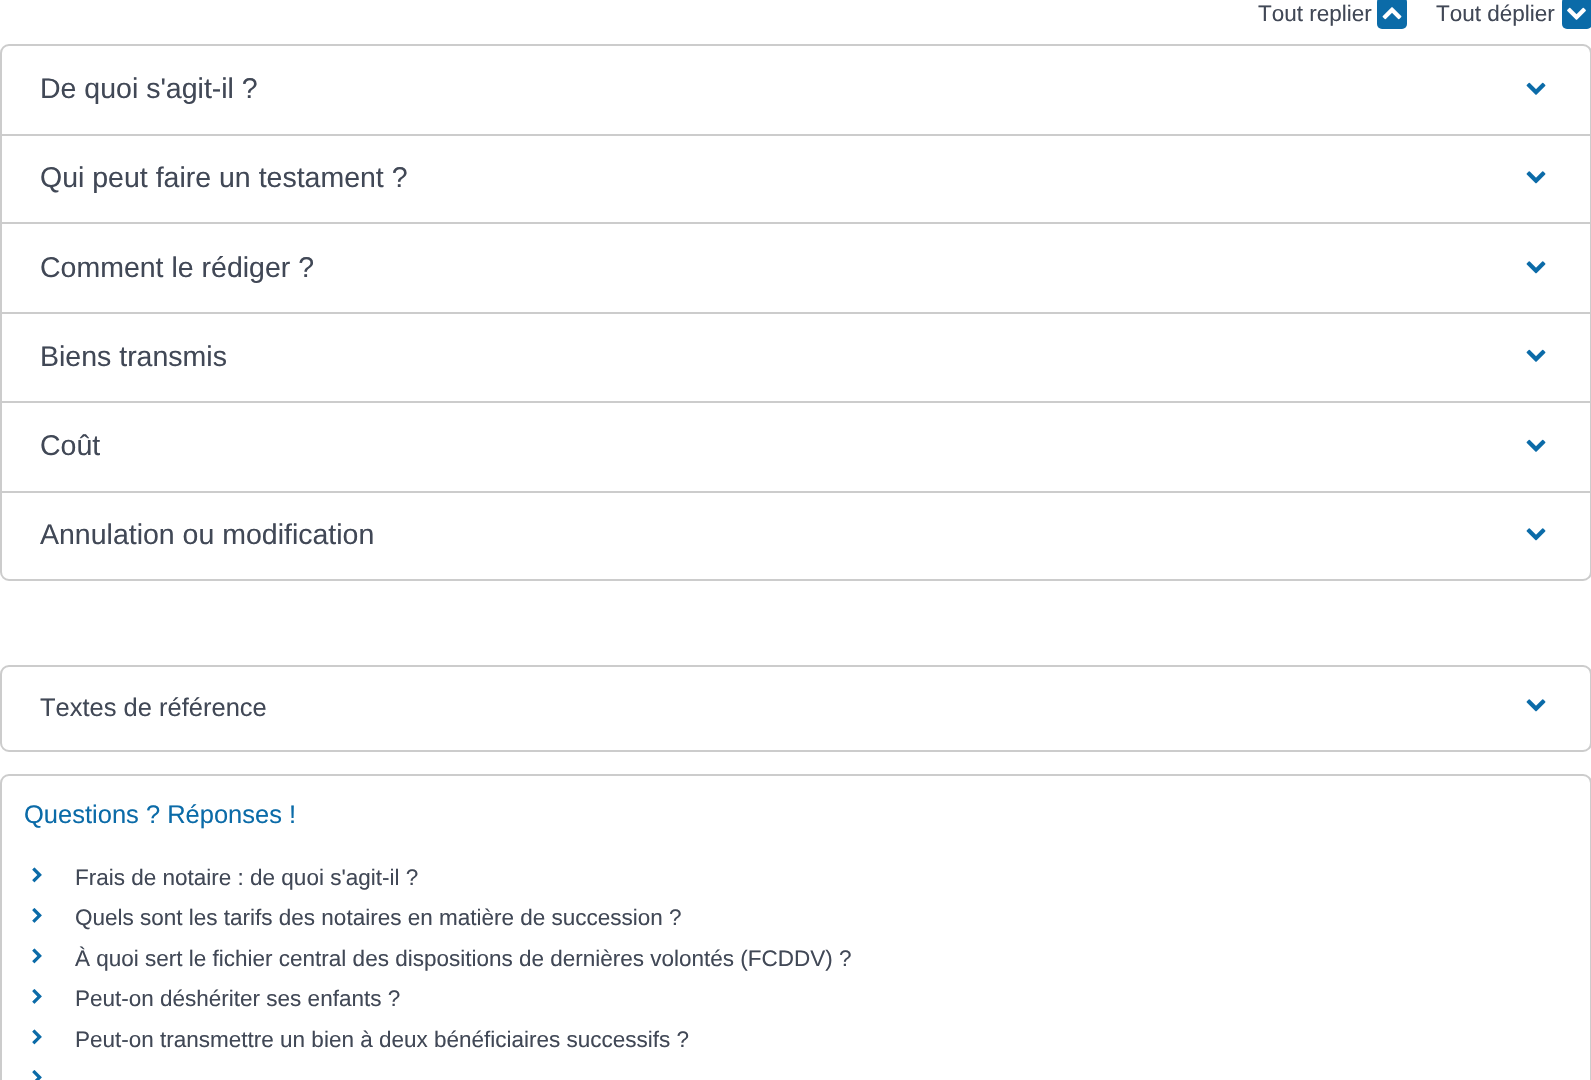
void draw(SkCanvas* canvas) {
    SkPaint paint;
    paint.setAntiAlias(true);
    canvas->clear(0xFFFFFFFF);
    SkFont font1(fontMgr->matchFamilyStyle("Liberation Sans", SkFontStyle::Normal()), 22.5f);
    font1.setSubpixel(true);
    paint.setColor(0xFF414856);
    canvas->drawString("Tout replier", 1258, 21, font1, paint);
    paint.setColor(0xFF0B6BA8);
    canvas->drawRoundRect(SkRect::MakeXYWH(1377, -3, 30, 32), 5, 5, paint);
    canvas->drawImageRect(SkImages::DeferredFromEncodedData(SkData::MakeFromFileName("img1.png")), SkRect::MakeXYWH(1382, 7, 20, 13), SkSamplingOptions());
    paint.setColor(0xFF414856);
    canvas->drawString("Tout déplier", 1436, 21, font1, paint);
    paint.setColor(0xFF0B6BA8);
    canvas->drawRoundRect(SkRect::MakeXYWH(1562, -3, 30, 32), 5, 5, paint);
    canvas->drawImageRect(SkImages::DeferredFromEncodedData(SkData::MakeFromFileName("img2.png")), SkRect::MakeXYWH(1567, 7, 19, 13), SkSamplingOptions());
    paint.setStyle(SkPaint::kStroke_Style);
    paint.setStrokeWidth(2);
    paint.setColor(0xFFCCCCCC);
    canvas->drawRoundRect(SkRect::MakeXYWH(1, 45, 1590, 535), 8, 8, paint);
    SkFont font2(fontMgr->matchFamilyStyle("Liberation Sans", SkFontStyle::Normal()), 28.5f);
    font2.setSubpixel(true);
    paint.setStyle(SkPaint::kFill_Style);
    paint.setColor(0xFF414856);
    canvas->drawString("De quoi s'agit-il ?", 40, 98, font2, paint);
    canvas->drawImageRect(SkImages::DeferredFromEncodedData(SkData::MakeFromFileName("img3.png")), SkRect::MakeXYWH(1526, 82, 20, 13), SkSamplingOptions());
    paint.setColor(0xFFCCCCCC);
    canvas->drawRect(SkRect::MakeXYWH(2, 134, 1588, 2), paint);
    paint.setColor(0xFF414856);
    canvas->drawString("Qui peut faire un testament ?", 40, 187, font2, paint);
    canvas->drawImageRect(SkImages::DeferredFromEncodedData(SkData::MakeFromFileName("img4.png")), SkRect::MakeXYWH(1526, 171, 20, 13), SkSamplingOptions());
    paint.setColor(0xFFCCCCCC);
    canvas->drawRect(SkRect::MakeXYWH(2, 222, 1588, 2), paint);
    paint.setColor(0xFF414856);
    canvas->drawString("Comment le rédiger ?", 40, 277, font2, paint);
    canvas->drawImageRect(SkImages::DeferredFromEncodedData(SkData::MakeFromFileName("img4.png")), SkRect::MakeXYWH(1526, 261, 20, 13), SkSamplingOptions());
    paint.setColor(0xFFCCCCCC);
    canvas->drawRect(SkRect::MakeXYWH(2, 312, 1588, 2), paint);
    paint.setColor(0xFF414856);
    canvas->drawString("Biens transmis", 40, 366, font2, paint);
    canvas->drawImageRect(SkImages::DeferredFromEncodedData(SkData::MakeFromFileName("img3.png")), SkRect::MakeXYWH(1526, 349, 20, 13), SkSamplingOptions());
    paint.setColor(0xFFCCCCCC);
    canvas->drawRect(SkRect::MakeXYWH(2, 401, 1588, 2), paint);
    paint.setColor(0xFF414856);
    canvas->drawString("Coût", 40, 455, font2, paint);
    canvas->drawImageRect(SkImages::DeferredFromEncodedData(SkData::MakeFromFileName("img3.png")), SkRect::MakeXYWH(1526, 439, 20, 13), SkSamplingOptions());
    paint.setColor(0xFFCCCCCC);
    canvas->drawRect(SkRect::MakeXYWH(2, 491, 1588, 2), paint);
    paint.setColor(0xFF414856);
    canvas->drawString("Annulation ou modification", 40, 544, font2, paint);
    canvas->drawImageRect(SkImages::DeferredFromEncodedData(SkData::MakeFromFileName("img4.png")), SkRect::MakeXYWH(1526, 528, 20, 13), SkSamplingOptions());
    paint.setStyle(SkPaint::kStroke_Style);
    paint.setColor(0xFFCCCCCC);
    canvas->drawRoundRect(SkRect::MakeXYWH(1, 666, 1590, 85), 8, 8, paint);
    SkFont font3(fontMgr->matchFamilyStyle("Liberation Sans", SkFontStyle::Normal()), 25.5f);
    font3.setSubpixel(true);
    paint.setStyle(SkPaint::kFill_Style);
    paint.setColor(0xFF414856);
    canvas->drawString("Textes de référence", 40, 716, font3, paint);
    canvas->drawImageRect(SkImages::DeferredFromEncodedData(SkData::MakeFromFileName("img4.png")), SkRect::MakeXYWH(1526, 699, 20, 13), SkSamplingOptions());
    paint.setStyle(SkPaint::kStroke_Style);
    paint.setColor(0xFFCCCCCC);
    canvas->drawRoundRect(SkRect::MakeXYWH(1, 775, 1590, 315), 8, 8, paint);
    paint.setStyle(SkPaint::kFill_Style);
    paint.setColor(0xFF0B6BA8);
    canvas->drawString("Questions ? Réponses !", 24, 823, font3, paint);
    canvas->drawImageRect(SkImages::DeferredFromEncodedData(SkData::MakeFromFileName("img5.png")), SkRect::MakeXYWH(32, 867, 10, 16), SkSamplingOptions());
    paint.setColor(0xFF414856);
    canvas->drawString("Frais de notaire : de quoi s'agit-il ?", 75, 885, font1, paint);
    canvas->drawImageRect(SkImages::DeferredFromEncodedData(SkData::MakeFromFileName("img6.png")), SkRect::MakeXYWH(32, 908, 10, 15), SkSamplingOptions());
    canvas->drawString("Quels sont les tarifs des notaires en matière de succession ?", 75, 925, font1, paint);
    canvas->drawImageRect(SkImages::DeferredFromEncodedData(SkData::MakeFromFileName("img5.png")), SkRect::MakeXYWH(32, 948, 10, 16), SkSamplingOptions());
    canvas->drawString("À quoi sert le fichier central des dispositions de dernières volontés (FCDDV) ?", 75, 966, font1, paint);
    canvas->drawImageRect(SkImages::DeferredFromEncodedData(SkData::MakeFromFileName("img6.png")), SkRect::MakeXYWH(32, 989, 10, 15), SkSamplingOptions());
    canvas->drawString("Peut-on déshériter ses enfants ?", 75, 1006, font1, paint);
    canvas->drawImageRect(SkImages::DeferredFromEncodedData(SkData::MakeFromFileName("img5.png")), SkRect::MakeXYWH(32, 1029, 10, 16), SkSamplingOptions());
    canvas->drawString("Peut-on transmettre un bien à deux bénéficiaires successifs ?", 75, 1047, font1, paint);
    canvas->drawImageRect(SkImages::DeferredFromEncodedData(SkData::MakeFromFileName("img7.png")), SkRect::MakeXYWH(32, 1070, 10, 10), SkSamplingOptions());
}
